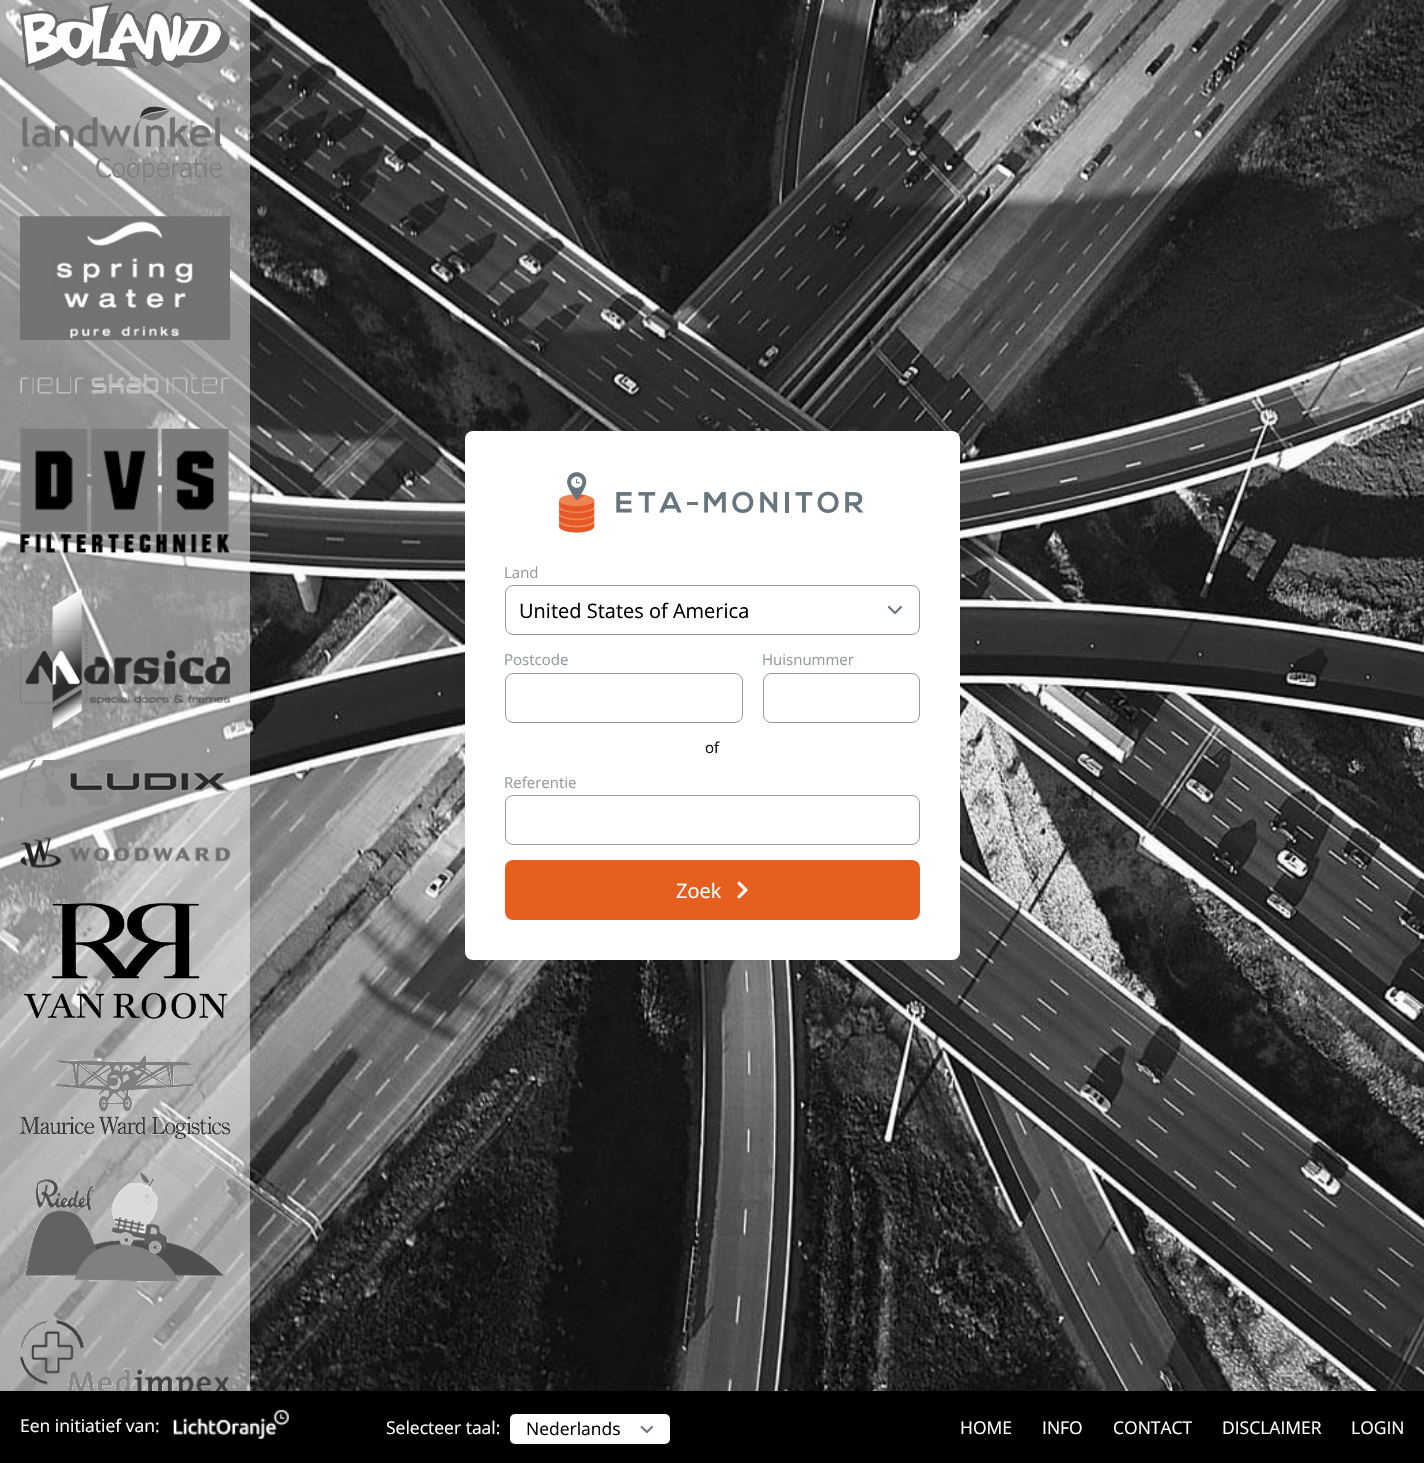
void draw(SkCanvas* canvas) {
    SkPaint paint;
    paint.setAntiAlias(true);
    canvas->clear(0xFFFFFFFF);
    canvas->drawImageRect(SkImages::DeferredFromEncodedData(SkData::MakeFromFileName("img13.png")), SkRect::MakeXYWH(0, 0, 1424, 1391), SkSamplingOptions());
    paint.setColor(0x80FFFFFF);
    canvas->drawRect(SkRect::MakeXYWH(0, 0, 250, 1391), paint);
    canvas->drawImageRect(SkImages::DeferredFromEncodedData(SkData::MakeFromFileName("img1.png")), SkRect::MakeXYWH(20, 1, 210, 71), SkSamplingOptions());
    canvas->drawImageRect(SkImages::DeferredFromEncodedData(SkData::MakeFromFileName("img2.png")), SkRect::MakeXYWH(22, 106, 208, 77), SkSamplingOptions());
    canvas->drawImageRect(SkImages::DeferredFromEncodedData(SkData::MakeFromFileName("img3.png")), SkRect::MakeXYWH(20, 216, 210, 124), SkSamplingOptions());
    canvas->drawImageRect(SkImages::DeferredFromEncodedData(SkData::MakeFromFileName("img4.png")), SkRect::MakeXYWH(20, 373, 209, 21), SkSamplingOptions());
    canvas->drawImageRect(SkImages::DeferredFromEncodedData(SkData::MakeFromFileName("img5.png")), SkRect::MakeXYWH(20, 428, 210, 125), SkSamplingOptions());
    canvas->drawImageRect(SkImages::DeferredFromEncodedData(SkData::MakeFromFileName("img6.png")), SkRect::MakeXYWH(20, 588, 210, 141), SkSamplingOptions());
    canvas->drawImageRect(SkImages::DeferredFromEncodedData(SkData::MakeFromFileName("img7.png")), SkRect::MakeXYWH(20, 760, 210, 46), SkSamplingOptions());
    canvas->drawImageRect(SkImages::DeferredFromEncodedData(SkData::MakeFromFileName("img8.png")), SkRect::MakeXYWH(20, 837, 210, 31), SkSamplingOptions());
    canvas->drawImageRect(SkImages::DeferredFromEncodedData(SkData::MakeFromFileName("img9.png")), SkRect::MakeXYWH(23, 903, 205, 116), SkSamplingOptions());
    canvas->drawImageRect(SkImages::DeferredFromEncodedData(SkData::MakeFromFileName("img10.png")), SkRect::MakeXYWH(20, 1055, 210, 84), SkSamplingOptions());
    canvas->drawImageRect(SkImages::DeferredFromEncodedData(SkData::MakeFromFileName("img11.png")), SkRect::MakeXYWH(24, 1172, 200, 111), SkSamplingOptions());
    canvas->drawImageRect(SkImages::DeferredFromEncodedData(SkData::MakeFromFileName("img12.png")), SkRect::MakeXYWH(20, 1320, 210, 71), SkSamplingOptions());
    paint.setColor(0xFFFFFFFF);
    canvas->drawRoundRect(SkRect::MakeXYWH(465, 431, 495, 529), 8, 8, paint);
    canvas->drawImageRect(SkImages::DeferredFromEncodedData(SkData::MakeFromFileName("img14.png")), SkRect::MakeXYWH(559, 472, 305, 61), SkSamplingOptions());
    SkFont font1(fontMgr->matchFamilyStyle("Open Sans", SkFontStyle::Normal()), 15);
    font1.setSubpixel(true);
    paint.setColor(0xFF939B9F);
    canvas->drawString("Land", 504, 578, font1, paint);
    paint.setStyle(SkPaint::kStroke_Style);
    paint.setStrokeWidth(2.2f);
    paint.setStrokeCap(SkPaint::kRound_Cap);
    paint.setStrokeJoin(SkPaint::kRound_Join);
    paint.setColor(0xFF6B7280);
    canvas->drawPath(SkPathBuilder().moveTo(889, 607).lineTo(895, 613).lineTo(901, 607).detach(), paint);
    paint.setStrokeWidth(1);
    paint.setStrokeCap(SkPaint::kButt_Cap);
    paint.setStrokeJoin(SkPaint::kMiter_Join);
    paint.setColor(0xFF939B9F);
    canvas->drawRoundRect(SkRect::MakeXYWH(505.5f, 585.5f, 414, 49), 7.5f, 7.5f, paint);
    SkFont font2(fontMgr->matchFamilyStyle("Open Sans", SkFontStyle::Normal()), 20);
    font2.setSubpixel(true);
    paint.setStyle(SkPaint::kFill_Style);
    paint.setColor(0xFF000000);
    canvas->drawString("United States of America", 519, 618, font2, paint);
    paint.setColor(0xFF939B9F);
    canvas->drawString("Postcode", 504, 665, font1, paint);
    paint.setStyle(SkPaint::kStroke_Style);
    canvas->drawRoundRect(SkRect::MakeXYWH(505.5f, 673.5f, 237, 49), 7.5f, 7.5f, paint);
    paint.setStyle(SkPaint::kFill_Style);
    canvas->drawString("Huisnummer", 762, 665, font1, paint);
    paint.setStyle(SkPaint::kStroke_Style);
    canvas->drawRoundRect(SkRect::MakeXYWH(763.5f, 673.5f, 156, 49), 7.5f, 7.5f, paint);
    paint.setStyle(SkPaint::kFill_Style);
    paint.setColor(0xFF000000);
    canvas->drawString("of", 705, 753, font1, paint);
    paint.setColor(0xFF939B9F);
    canvas->drawString("Referentie", 504, 788, font1, paint);
    paint.setStyle(SkPaint::kStroke_Style);
    canvas->drawRoundRect(SkRect::MakeXYWH(505.5f, 795.5f, 414, 49), 7.5f, 7.5f, paint);
    paint.setStyle(SkPaint::kFill_Style);
    paint.setColor(0xFFE65F1F);
    canvas->drawRoundRect(SkRect::MakeXYWH(505, 860, 415, 60), 8, 8, paint);
    paint.setColor(0xFFFFFFFF);
    canvas->drawString("Zoek", 676, 898, font2, paint);
    canvas->drawImageRect(SkImages::DeferredFromEncodedData(SkData::MakeFromFileName("img15.png")), SkRect::MakeXYWH(737, 881, 11, 18), SkSamplingOptions());
    paint.setColor(0xFF000000);
    canvas->drawRect(SkRect::MakeXYWH(0, 1391, 1424, 72), paint);
    SkFont font3(fontMgr->matchFamilyStyle("Open Sans", SkFontStyle::Normal()), 17.5f);
    font3.setSubpixel(true);
    paint.setColor(0xFFFFFFFF);
    canvas->drawString("Een initiatief van:", 20, 1432, font3, paint);
    canvas->drawImageRect(SkImages::DeferredFromEncodedData(SkData::MakeFromFileName("img16.png")), SkRect::MakeXYWH(173, 1409, 116, 30), SkSamplingOptions());
    canvas->drawString("Selecteer taal:", 386, 1434, font3, paint);
    canvas->drawRoundRect(SkRect::MakeXYWH(510, 1414, 160, 30), 5, 5, paint);
    paint.setStyle(SkPaint::kStroke_Style);
    paint.setStrokeWidth(2);
    paint.setStrokeCap(SkPaint::kRound_Cap);
    paint.setStrokeJoin(SkPaint::kRound_Join);
    paint.setColor(0xFF6B7280);
    canvas->drawPath(SkPathBuilder().moveTo(641.5f, 1427).lineTo(647, 1432).lineTo(652, 1427).detach(), paint);
    paint.setStyle(SkPaint::kFill_Style);
    paint.setColor(0xFF000000);
    canvas->drawString("Nederlands", 526, 1435, font3, paint);
    paint.setColor(0xFFFFFFFF);
    canvas->drawString("HOME", 960, 1434, font3, paint);
    canvas->drawString("INFO", 1042, 1434, font3, paint);
    canvas->drawString("CONTACT", 1113, 1434, font3, paint);
    canvas->drawString("DISCLAIMER", 1222, 1434, font3, paint);
    canvas->drawString("LOGIN", 1351, 1434, font3, paint);
}
